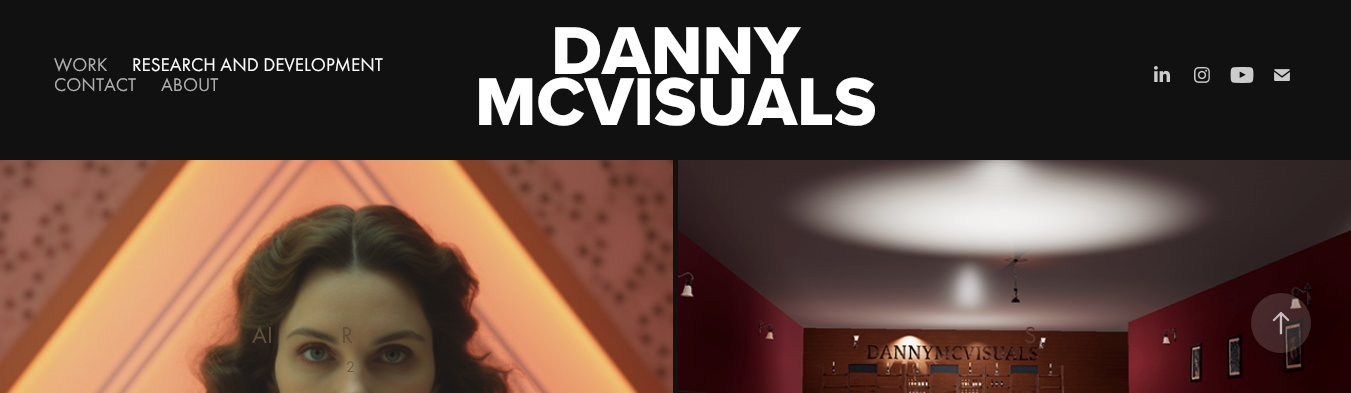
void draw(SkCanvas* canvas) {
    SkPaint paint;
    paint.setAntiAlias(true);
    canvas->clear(0xFF111111);
    SkFont font1(fontMgr->matchFamilyStyle("Futura PT", SkFontStyle::Normal()), 19);
    font1.setSubpixel(true);
    paint.setColor(0xFFAEAEAE);
    canvas->drawString("WORK", 54, 71, font1, paint);
    paint.setColor(0xFFFFFFFF);
    canvas->drawString("RESEARCH AND DEVELOPMENT", 132, 71, font1, paint);
    paint.setColor(0xFFAEAEAE);
    canvas->drawString("CONTACT", 54, 91, font1, paint);
    canvas->drawString("ABOUT", 161, 91, font1, paint);
    SkFont font2(fontMgr->matchFamilyStyle("Proxima Nova", SkFontStyle(800, SkFontStyle::kNormal_Width, SkFontStyle::kUpright_Slant)), 70);
    font2.setSubpixel(true);
    paint.setColor(0xFFFFFFFF);
    canvas->drawString("DANNY", 551, 74, font2, paint);
    canvas->drawString("MCVISUALS", 475, 125, font2, paint);
    canvas->drawImageRect(SkImages::DeferredFromEncodedData(SkData::MakeFromFileName("img1.png")), SkRect::MakeXYWH(1154, 66, 16, 16), SkSamplingOptions());
    canvas->drawImageRect(SkImages::DeferredFromEncodedData(SkData::MakeFromFileName("img2.png")), SkRect::MakeXYWH(1194, 67, 16, 16), SkSamplingOptions());
    canvas->drawImageRect(SkImages::DeferredFromEncodedData(SkData::MakeFromFileName("img3.png")), SkRect::MakeXYWH(1230, 67, 24, 16), SkSamplingOptions());
    canvas->drawImageRect(SkImages::DeferredFromEncodedData(SkData::MakeFromFileName("img4.png")), SkRect::MakeXYWH(1274, 69, 16, 12), SkSamplingOptions());
    canvas->drawImageRect(SkImages::DeferredFromEncodedData(SkData::MakeFromFileName("img5.png")), SkRect::MakeXYWH(0, 160, 673, 233), SkSamplingOptions());
    SkFont font3(fontMgr->matchFamilyStyle("Futura PT", SkFontStyle::Normal()), 24);
    font3.setSubpixel(true);
    paint.setColor(0xFF604F38);
    canvas->drawString("AI", 252, 343, font3, paint);
    canvas->drawString("R", 341, 343, font3, paint);
    SkFont font4(fontMgr->matchFamilyStyle("Futura PT", SkFontStyle::Normal()), 16);
    font4.setSubpixel(true);
    paint.setColor(0xFF6F5B41);
    canvas->drawString("2", 346, 372, font4, paint);
    canvas->drawImageRect(SkImages::DeferredFromEncodedData(SkData::MakeFromFileName("img6.png")), SkRect::MakeXYWH(678, 160, 673, 233), SkSamplingOptions());
    paint.setColor(0xFF5A352A);
    canvas->drawString("S", 1024, 343, font3, paint);
    paint.setColor(0x26FFFFFF);
    canvas->drawCircle(1281, 323, 30, paint);
    canvas->drawImageRect(SkImages::DeferredFromEncodedData(SkData::MakeFromFileName("img7.png")), SkRect::MakeXYWH(1272, 312, 18, 23), SkSamplingOptions());
}
